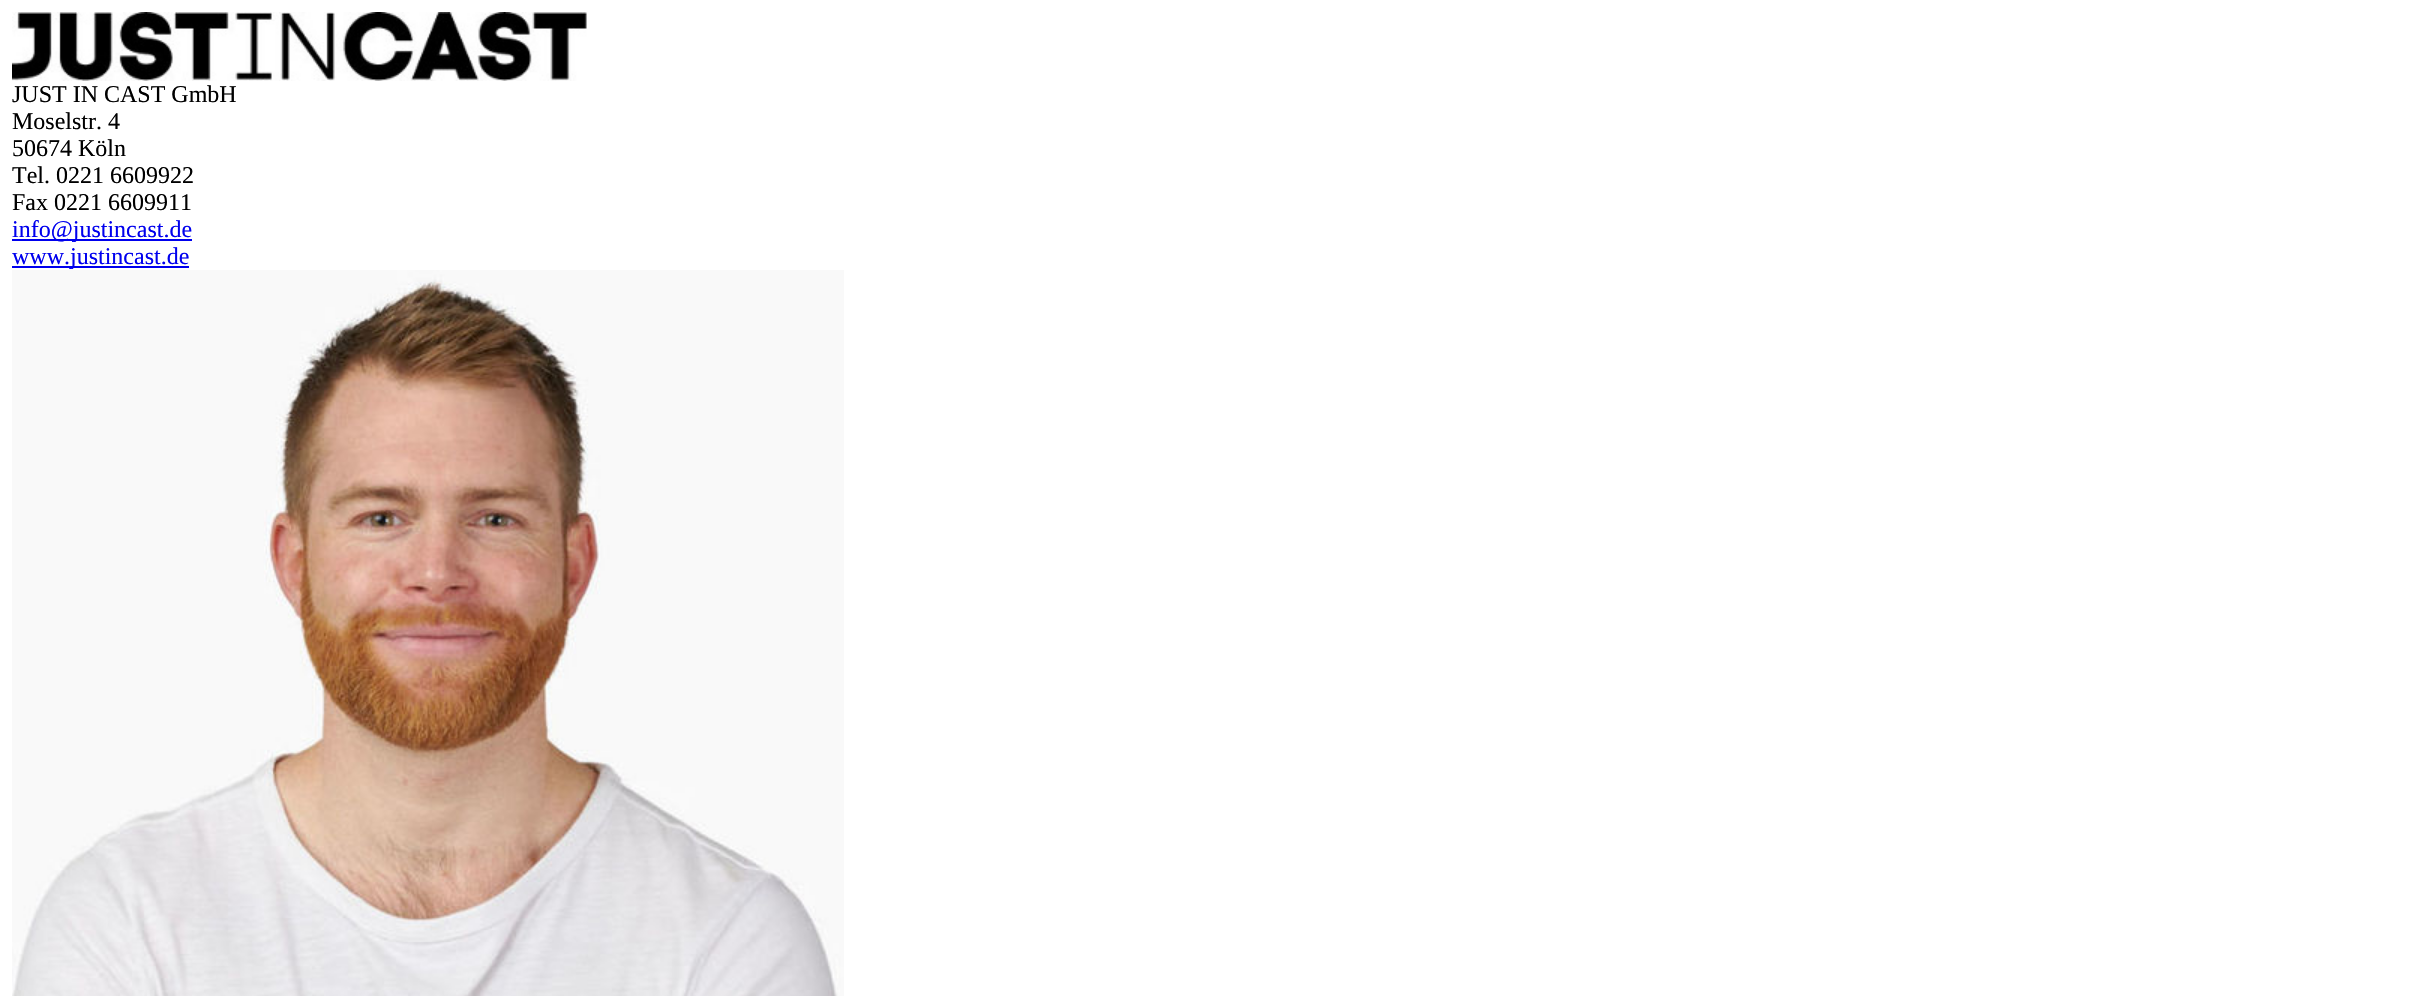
void draw(SkCanvas* canvas) {
    SkPaint paint;
    paint.setAntiAlias(true);
    canvas->clear(0xFFFFFFFF);
    canvas->drawImageRect(SkImages::DeferredFromEncodedData(SkData::MakeFromFileName("img1.png")), SkRect::MakeXYWH(12, 12, 575, 69), SkSamplingOptions());
    SkFont font1(fontMgr->matchFamilyStyle("Liberation Serif", SkFontStyle::Normal()), 24);
    font1.setSubpixel(true);
    paint.setColor(0xFF000000);
    canvas->drawString("JUST IN CAST GmbH", 12, 102, font1, paint);
    canvas->drawString("Moselstr. 4", 12, 129, font1, paint);
    canvas->drawString("50674 Köln", 12, 156, font1, paint);
    canvas->drawString("Tel. 0221 6609922", 12, 183, font1, paint);
    canvas->drawString("Fax 0221 6609911", 12, 210, font1, paint);
    paint.setColor(0xFF0000EE);
    canvas->drawRect(SkRect::MakeXYWH(12, 239, 180, 2), paint);
    canvas->drawString("info@justincast.de", 12, 237, font1, paint);
    canvas->drawRect(SkRect::MakeXYWH(12, 266, 177, 2), paint);
    canvas->drawString("www.justincast.de", 12, 264, font1, paint);
    canvas->drawImageRect(SkImages::DeferredFromEncodedData(SkData::MakeFromFileName("img2.png")), SkRect::MakeXYWH(12, 270, 832, 726), SkSamplingOptions());
}
